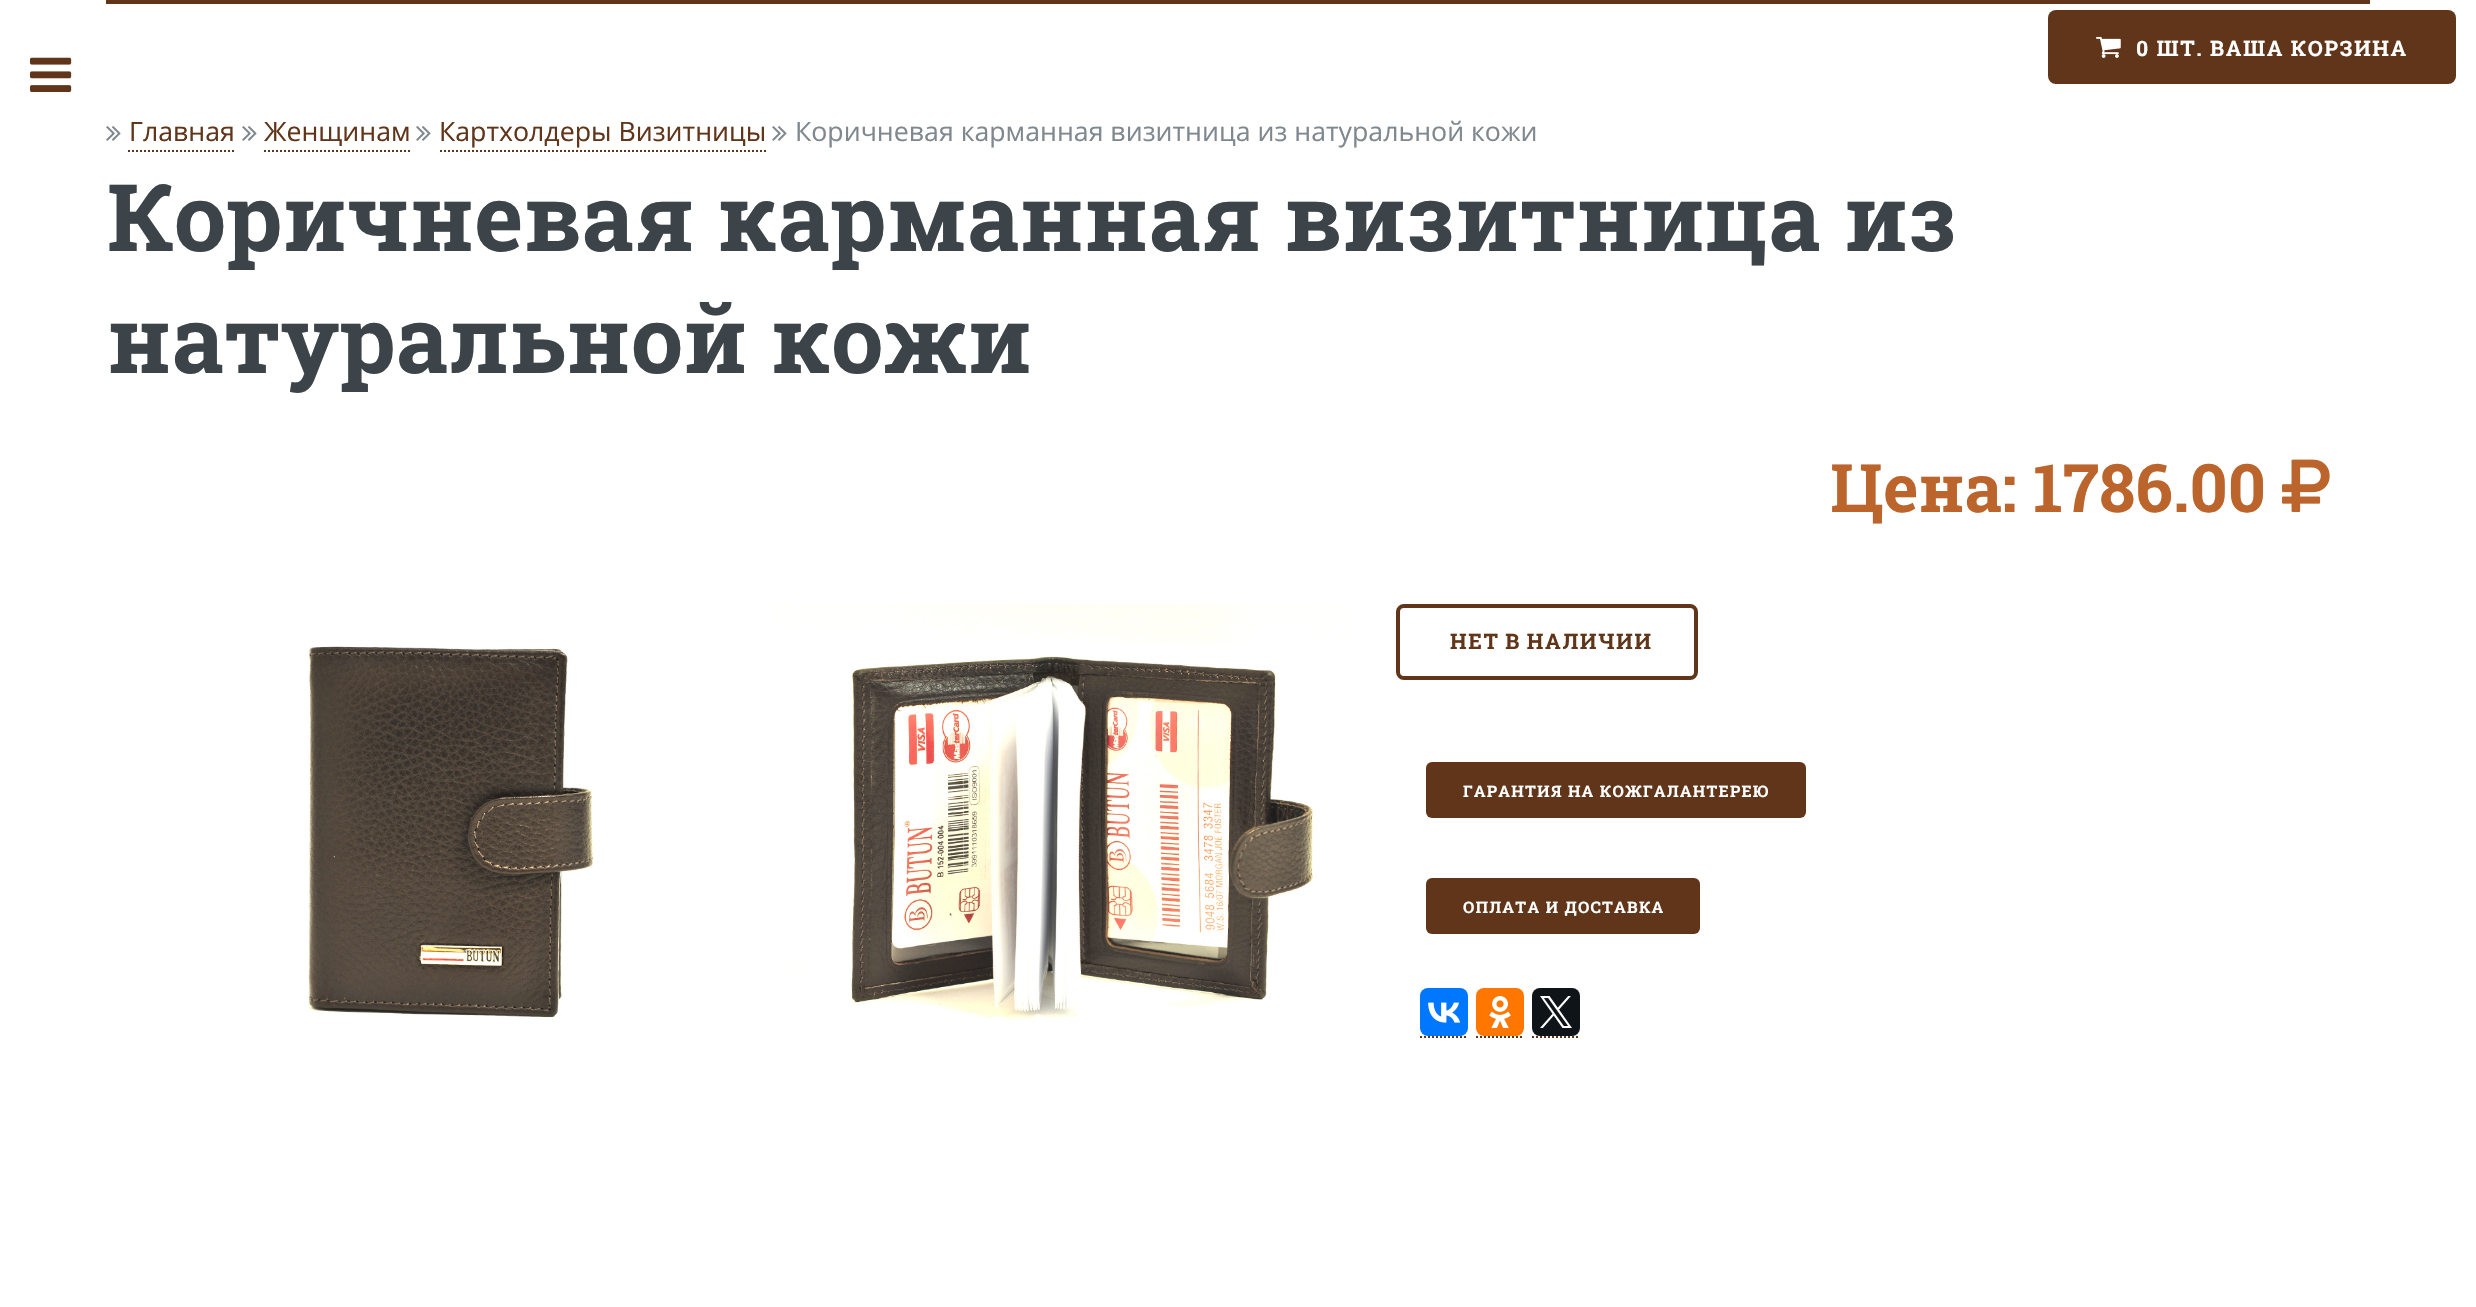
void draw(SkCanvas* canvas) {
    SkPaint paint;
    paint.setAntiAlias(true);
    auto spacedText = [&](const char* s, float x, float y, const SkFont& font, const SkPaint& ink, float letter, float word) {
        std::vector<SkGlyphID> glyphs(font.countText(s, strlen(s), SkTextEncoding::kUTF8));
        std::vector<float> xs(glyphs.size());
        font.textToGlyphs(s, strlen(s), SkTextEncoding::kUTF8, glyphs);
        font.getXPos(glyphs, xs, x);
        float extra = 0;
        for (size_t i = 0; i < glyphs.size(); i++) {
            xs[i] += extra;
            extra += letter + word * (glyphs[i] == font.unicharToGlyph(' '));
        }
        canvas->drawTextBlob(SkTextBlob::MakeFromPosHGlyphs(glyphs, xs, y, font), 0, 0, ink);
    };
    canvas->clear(0xFFFFFFFF);
    canvas->drawImageRect(SkImages::DeferredFromEncodedData(SkData::MakeFromFileName("img1.png")), SkRect::MakeXYWH(30, 57, 42, 35), SkSamplingOptions());
    paint.setColor(0xFF603519);
    canvas->drawRect(SkRect::MakeXYWH(106, 0, 2264, 4), paint);
    canvas->drawRoundRect(SkRect::MakeXYWH(2048, 10, 408, 74), 8, 8, paint);
    canvas->drawImageRect(SkImages::DeferredFromEncodedData(SkData::MakeFromFileName("img2.png")), SkRect::MakeXYWH(2096, 36, 25, 22), SkSamplingOptions());
    SkFont font1(fontMgr->matchFamilyStyle("Roboto Slab", SkFontStyle::Bold()), 21.3f);
    font1.setSubpixel(true);
    paint.setColor(0xFFFFFFFF);
    spacedText("0 ШТ. ВАША КОРЗИНА", 2136, 56, font1, paint, 1.6f, 0);
    canvas->drawImageRect(SkImages::DeferredFromEncodedData(SkData::MakeFromFileName("img3.png")), SkRect::MakeXYWH(106, 126, 15, 15), SkSamplingOptions());
    SkFont font2(fontMgr->matchFamilyStyle("Open Sans", SkFontStyle::Normal()), 26.7f);
    font2.setSubpixel(true);
    paint.setColor(0xFF603519);
    canvas->drawString("Главная", 129, 141, font2, paint);
    paint.setStyle(SkPaint::kStroke_Style);
    paint.setStrokeWidth(2);
    paint.setPathEffect(SkDashPathEffect::Make({{2, 2}}, 0));
    canvas->drawPath(SkPathBuilder().moveTo(128, 151).lineTo(234, 151).detach(), paint);
    paint.setPathEffect(nullptr);
    canvas->drawImageRect(SkImages::DeferredFromEncodedData(SkData::MakeFromFileName("img3.png")), SkRect::MakeXYWH(242, 126, 15, 15), SkSamplingOptions());
    paint.setStyle(SkPaint::kFill_Style);
    canvas->drawString("Женщинам", 264, 141, font2, paint);
    paint.setStyle(SkPaint::kStroke_Style);
    paint.setPathEffect(SkDashPathEffect::Make({{2, 2}}, 0));
    canvas->drawPath(SkPathBuilder().moveTo(264, 151).lineTo(410, 151).detach(), paint);
    paint.setPathEffect(nullptr);
    canvas->drawImageRect(SkImages::DeferredFromEncodedData(SkData::MakeFromFileName("img3.png")), SkRect::MakeXYWH(416, 126, 15, 15), SkSamplingOptions());
    paint.setStyle(SkPaint::kFill_Style);
    canvas->drawString("Картхолдеры Визитницы", 439, 141, font2, paint);
    paint.setStyle(SkPaint::kStroke_Style);
    paint.setPathEffect(SkDashPathEffect::Make({{2, 2}}, 0));
    canvas->drawPath(SkPathBuilder().moveTo(440, 151).lineTo(766, 151).detach(), paint);
    paint.setPathEffect(nullptr);
    canvas->drawImageRect(SkImages::DeferredFromEncodedData(SkData::MakeFromFileName("img3.png")), SkRect::MakeXYWH(772, 126, 15, 15), SkSamplingOptions());
    paint.setStyle(SkPaint::kFill_Style);
    paint.setColor(0xFF7F888F);
    canvas->drawString("Коричневая карманная визитница из натуральной кожи", 795, 141, font2, paint);
    SkFont font3(fontMgr->matchFamilyStyle("Roboto Slab", SkFontStyle::Bold()), 93.3f);
    font3.setSubpixel(true);
    paint.setColor(0xFF3D4449);
    canvas->drawString("Коричневая карманная визитница из", 107, 251, font3, paint);
    canvas->drawString("натуральной кожи", 107, 373, font3, paint);
    SkFont font4(fontMgr->matchFamilyStyle("Roboto Slab", SkFontStyle::Bold()), 66.75f);
    font4.setSubpixel(true);
    paint.setColor(0xFFBB652D);
    canvas->drawString("Цена: 1786.00", 1830, 512, font4, paint);
    canvas->drawImageRect(SkImages::DeferredFromEncodedData(SkData::MakeFromFileName("img4.png")), SkRect::MakeXYWH(2282, 459, 48, 53), SkSamplingOptions());
    canvas->drawImageRect(SkImages::DeferredFromEncodedData(SkData::MakeFromFileName("img5.png")), SkRect::MakeXYWH(146, 646, 586, 372), SkSamplingOptions());
    canvas->drawImageRect(SkImages::DeferredFromEncodedData(SkData::MakeFromFileName("img6.png")), SkRect::MakeXYWH(772, 604, 582, 415), SkSamplingOptions());
    paint.setStyle(SkPaint::kStroke_Style);
    paint.setStrokeWidth(4);
    paint.setColor(0xFF603519);
    canvas->drawRoundRect(SkRect::MakeXYWH(1398, 606, 298, 72), 6, 6, paint);
    paint.setStyle(SkPaint::kFill_Style);
    spacedText("НЕТ В НАЛИЧИИ", 1450, 649, font1, paint, 1.6f, -1);
    canvas->drawRoundRect(SkRect::MakeXYWH(1426, 762, 380, 56), 6, 6, paint);
    SkFont font5(fontMgr->matchFamilyStyle("Roboto Slab", SkFontStyle::Bold()), 16);
    font5.setSubpixel(true);
    paint.setColor(0xFFFFFFFF);
    spacedText("ГАРАНТИЯ НА КОЖГАЛАНТЕРЕЮ", 1463, 797, font5, paint, 1.2f, 0);
    paint.setColor(0xFF603519);
    canvas->drawRoundRect(SkRect::MakeXYWH(1426, 878, 274, 56), 6, 6, paint);
    paint.setColor(0xFFFFFFFF);
    spacedText("ОПЛАТА И ДОСТАВКА", 1463, 913, font5, paint, 1.2f, 0);
    paint.setStyle(SkPaint::kStroke_Style);
    paint.setStrokeWidth(2);
    paint.setColor(0xFF603519);
    paint.setPathEffect(SkDashPathEffect::Make({{2, 2}}, 0));
    canvas->drawPath(SkPathBuilder().moveTo(1420, 1037).lineTo(1468, 1037).detach(), paint);
    paint.setPathEffect(nullptr);
    paint.setStyle(SkPaint::kFill_Style);
    paint.setColor(0xFF0077FF);
    canvas->drawRoundRect(SkRect::MakeXYWH(1420, 988, 48, 48), 8, 8, paint);
    canvas->drawImageRect(SkImages::DeferredFromEncodedData(SkData::MakeFromFileName("img7.png")), SkRect::MakeXYWH(1428, 1002, 33, 21), SkSamplingOptions());
    paint.setStyle(SkPaint::kStroke_Style);
    paint.setColor(0xFF603519);
    paint.setPathEffect(SkDashPathEffect::Make({{2, 2}}, 0));
    canvas->drawPath(SkPathBuilder().moveTo(1476, 1037).lineTo(1524, 1037).detach(), paint);
    paint.setPathEffect(nullptr);
    paint.setStyle(SkPaint::kFill_Style);
    paint.setColor(0xFFFF7700);
    canvas->drawRoundRect(SkRect::MakeXYWH(1476, 988, 48, 48), 8, 8, paint);
    canvas->drawImageRect(SkImages::DeferredFromEncodedData(SkData::MakeFromFileName("img8.png")), SkRect::MakeXYWH(1489, 996, 22, 32), SkSamplingOptions());
    paint.setStyle(SkPaint::kStroke_Style);
    paint.setColor(0xFF603519);
    paint.setPathEffect(SkDashPathEffect::Make({{2, 2}}, 0));
    canvas->drawPath(SkPathBuilder().moveTo(1532, 1037).lineTo(1580, 1037).detach(), paint);
    paint.setPathEffect(nullptr);
    paint.setStyle(SkPaint::kFill_Style);
    paint.setColor(0xFF0F1419);
    canvas->drawRoundRect(SkRect::MakeXYWH(1532, 988, 48, 48), 8, 8, paint);
    canvas->drawImageRect(SkImages::DeferredFromEncodedData(SkData::MakeFromFileName("img9.png")), SkRect::MakeXYWH(1540, 996, 32, 32), SkSamplingOptions());
}
